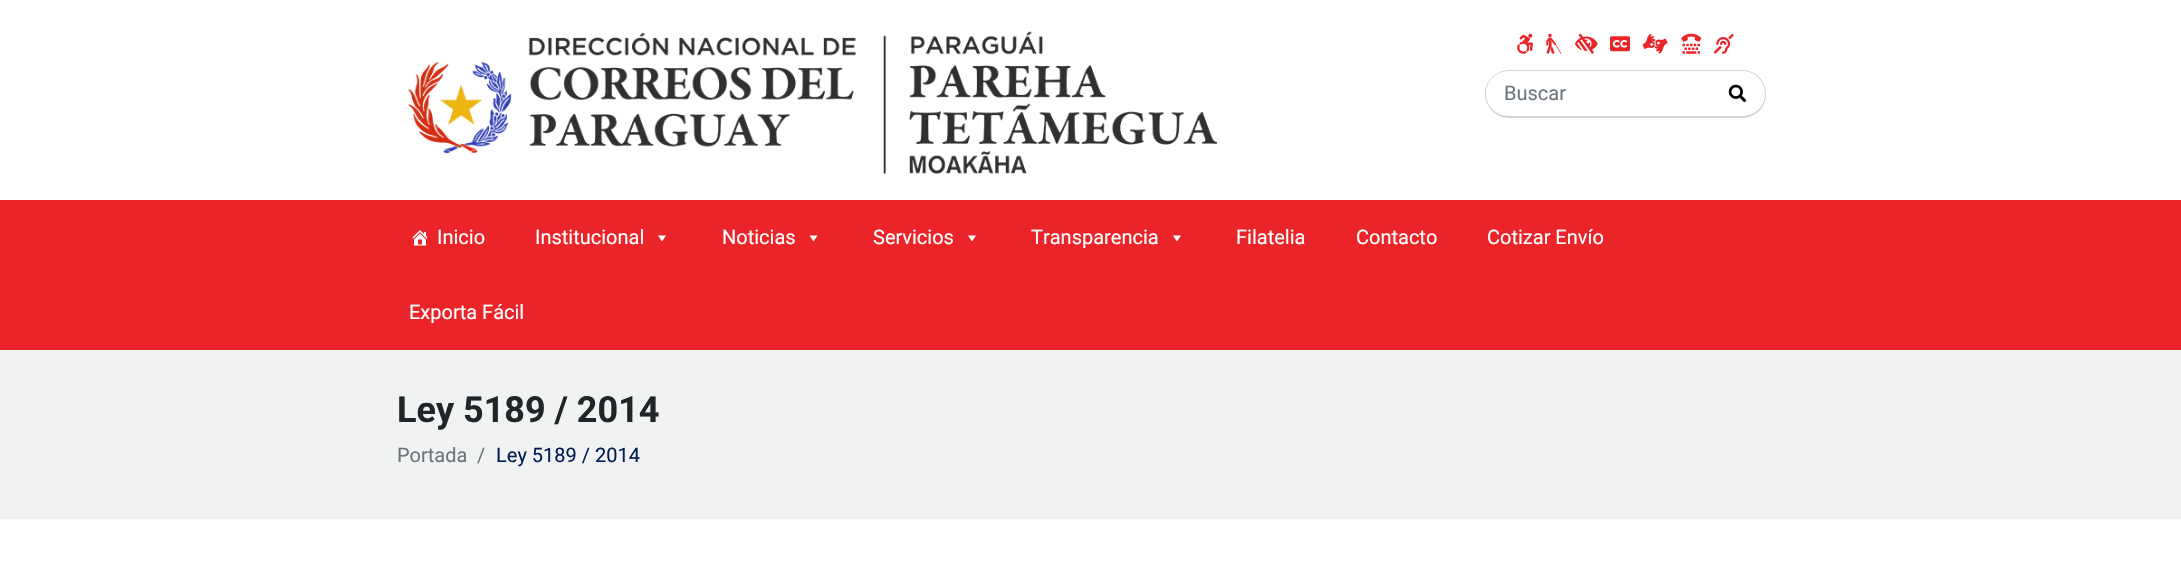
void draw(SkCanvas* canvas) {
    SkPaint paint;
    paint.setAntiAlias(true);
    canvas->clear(0xFFFFFFFF);
    canvas->drawImageRect(SkImages::DeferredFromEncodedData(SkData::MakeFromFileName("img1.png")), SkRect::MakeXYWH(408, 31, 809, 143), SkSamplingOptions());
    canvas->drawImageRect(SkImages::DeferredFromEncodedData(SkData::MakeFromFileName("img2.png")), SkRect::MakeXYWH(1517, 33, 16, 21), SkSamplingOptions());
    canvas->drawImageRect(SkImages::DeferredFromEncodedData(SkData::MakeFromFileName("img3.png")), SkRect::MakeXYWH(1546, 33, 16, 21), SkSamplingOptions());
    canvas->drawImageRect(SkImages::DeferredFromEncodedData(SkData::MakeFromFileName("img4.png")), SkRect::MakeXYWH(1575, 33, 23, 21), SkSamplingOptions());
    canvas->drawImageRect(SkImages::DeferredFromEncodedData(SkData::MakeFromFileName("img5.png")), SkRect::MakeXYWH(1610, 36, 20, 16), SkSamplingOptions());
    canvas->drawImageRect(SkImages::DeferredFromEncodedData(SkData::MakeFromFileName("img6.png")), SkRect::MakeXYWH(1642, 34, 26, 20), SkSamplingOptions());
    canvas->drawImageRect(SkImages::DeferredFromEncodedData(SkData::MakeFromFileName("img7.png")), SkRect::MakeXYWH(1681, 33, 21, 21), SkSamplingOptions());
    canvas->drawImageRect(SkImages::DeferredFromEncodedData(SkData::MakeFromFileName("img8.png")), SkRect::MakeXYWH(1713, 33, 21, 21), SkSamplingOptions());
    paint.setColor(0xFFCED4DA);
    canvas->drawPath(SkPathBuilder(SkPathFillType::kEvenOdd).moveTo(1509, 70).lineTo(1711, 70).lineTo(1711, 118).lineTo(1509, 118).cubicTo(1496, 118, 1485, 107, 1485, 94).cubicTo(1485, 81, 1496, 70, 1509, 70).close().moveTo(1509, 71).lineTo(1711, 71).lineTo(1711, 116).lineTo(1509, 116).cubicTo(1496, 116, 1486, 106, 1486, 94).cubicTo(1486, 81, 1496, 71, 1509, 71).close().detach(), paint);
    SkFont font1(fontMgr->matchFamilyStyle("Roboto", SkFontStyle::Normal()), 20);
    font1.setSubpixel(true);
    paint.setColor(0xFF6C757D);
    canvas->drawString("Buscar", 1504, 100, font1, paint);
    paint.setColor(0xFFCED4DA);
    canvas->drawPath(SkPathBuilder(SkPathFillType::kEvenOdd).moveTo(1710, 70).lineTo(1742, 70).cubicTo(1756, 70, 1766, 81, 1766, 94).cubicTo(1766, 107, 1756, 118, 1742, 118).lineTo(1710, 118).close().moveTo(1710, 71).lineTo(1742, 71).cubicTo(1755, 71, 1765, 81, 1765, 94).cubicTo(1765, 106, 1755, 116, 1742, 116).lineTo(1710, 116).close().detach(), paint);
    canvas->drawImageRect(SkImages::DeferredFromEncodedData(SkData::MakeFromFileName("img9.png")), SkRect::MakeXYWH(1728, 84, 19, 19), SkSamplingOptions());
    paint.setColor(0xFFEA2428);
    canvas->drawRect(SkRect::MakeXYWH(0, 200, 2181, 150), paint);
    canvas->drawImageRect(SkImages::DeferredFromEncodedData(SkData::MakeFromFileName("img10.png")), SkRect::MakeXYWH(412, 230, 16, 16), SkSamplingOptions());
    paint.setColor(0xFFFFFFFF);
    canvas->drawString("Inicio", 437, 244, font1, paint);
    canvas->drawString("Institucional", 535, 244, font1, paint);
    canvas->drawPath(SkPathBuilder().moveTo(666, 235.5f).lineTo(662, 241.5f).lineTo(658, 235.5f).close().detach(), paint);
    canvas->drawString("Noticias", 722, 244, font1, paint);
    canvas->drawPath(SkPathBuilder().moveTo(817.5f, 235.5f).lineTo(813.5f, 241.5f).lineTo(809.5f, 235.5f).close().detach(), paint);
    canvas->drawString("Servicios", 873, 244, font1, paint);
    canvas->drawPath(SkPathBuilder().moveTo(976, 235.5f).lineTo(972, 241.5f).lineTo(968, 235.5f).close().detach(), paint);
    canvas->drawString("Transparencia", 1031, 244, font1, paint);
    canvas->drawPath(SkPathBuilder().moveTo(1181, 235.5f).lineTo(1177, 241.5f).lineTo(1173, 235.5f).close().detach(), paint);
    canvas->drawString("Filatelia", 1236, 244, font1, paint);
    canvas->drawString("Contacto", 1356, 244, font1, paint);
    canvas->drawString("Cotizar Envío", 1487, 244, font1, paint);
    canvas->drawString("Exporta Fácil", 409, 319, font1, paint);
    paint.setColor(0xFFF1F3F2);
    canvas->drawRect(SkRect::MakeXYWH(0, 350, 2181, 169), paint);
    SkFont font2(fontMgr->matchFamilyStyle("Roboto", SkFontStyle::Bold()), 36);
    font2.setSubpixel(true);
    paint.setColor(0xFF212529);
    canvas->drawString("Ley 5189 / 2014", 397, 422, font2, paint);
    paint.setColor(0xFF6C757D);
    canvas->drawString("Portada", 397, 462, font1, paint);
    canvas->drawString("/", 477, 462, font1, paint);
    paint.setColor(0xFF001C54);
    canvas->drawString("Ley 5189 / 2014", 496, 462, font1, paint);
}
